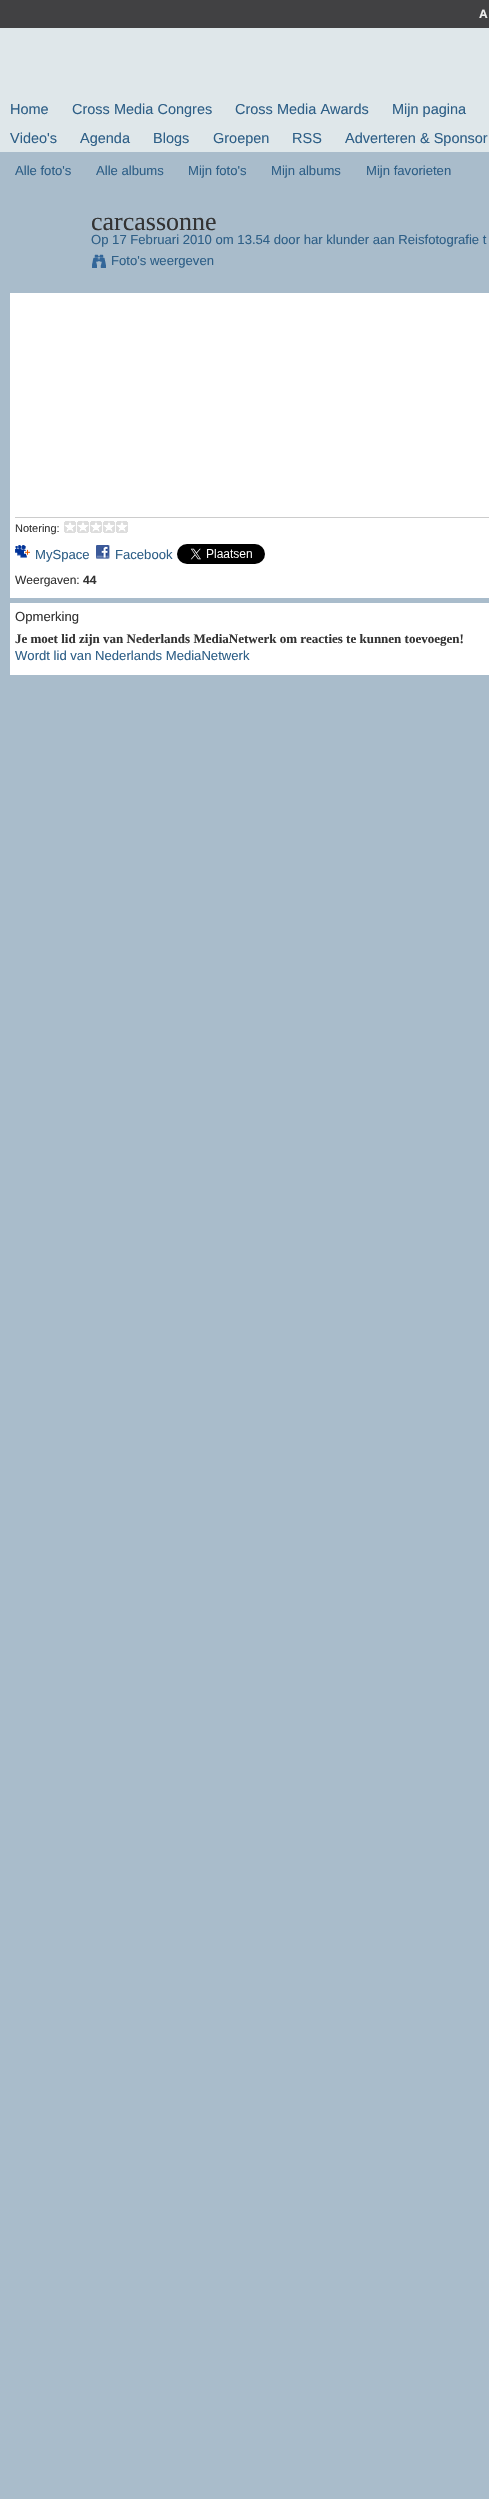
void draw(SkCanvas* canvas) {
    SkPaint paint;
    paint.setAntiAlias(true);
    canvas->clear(0xFFDFE7EA);
    paint.setColor(0xFF414143);
    canvas->drawRect(SkRect::MakeXYWH(0, 0, 489, 28), paint);
    SkFont font1(fontMgr->matchFamilyStyle("Liberation Sans", SkFontStyle::Bold()), 12);
    font1.setSubpixel(true);
    paint.setColor(0xFFEEEEEE);
    canvas->drawString("A", 479, 18, font1, paint);
    SkFont font2(fontMgr->matchFamilyStyle("Liberation Sans", SkFontStyle::Normal()), 14.5f);
    font2.setSubpixel(true);
    paint.setColor(0xFF2E5F87);
    canvas->drawString("Home", 10, 114, font2, paint);
    canvas->drawString("Cross Media Congres", 72, 114, font2, paint);
    canvas->drawString("Cross Media Awards", 235, 114, font2, paint);
    canvas->drawString("Mijn pagina", 392, 114, font2, paint);
    canvas->drawString("Video's", 10, 143, font2, paint);
    canvas->drawString("Agenda", 80, 143, font2, paint);
    canvas->drawString("Blogs", 153, 143, font2, paint);
    canvas->drawString("Groepen", 213, 143, font2, paint);
    canvas->drawString("RSS", 292, 143, font2, paint);
    canvas->drawString("Adverteren & Sponsor", 345, 143, font2, paint);
    paint.setColor(0xFFA9BCCB);
    canvas->drawRect(SkRect::MakeXYWH(0, 152, 489, 2347), paint);
    SkFont font3(fontMgr->matchFamilyStyle("Liberation Sans", SkFontStyle::Normal()), 13.1f);
    font3.setSubpixel(true);
    paint.setColor(0xFF2E5F87);
    canvas->drawString("Alle foto's", 15, 175, font3, paint);
    canvas->drawString("Alle albums", 96, 175, font3, paint);
    canvas->drawString("Mijn foto's", 188, 175, font3, paint);
    canvas->drawString("Mijn albums", 271, 175, font3, paint);
    canvas->drawString("Mijn favorieten", 366, 175, font3, paint);
    SkFont font4(fontMgr->matchFamilyStyle("Liberation Serif", SkFontStyle::Normal()), 26);
    font4.setSubpixel(true);
    paint.setColor(0xFF333333);
    canvas->drawString("carcassonne", 91, 230, font4, paint);
    paint.setColor(0xFF2E5F87);
    canvas->drawString("Op 17 Februari 2010 om 13.54 door har klunder aan Reisfotografie t", 91, 244, font3, paint);
    canvas->drawImageRect(SkImages::DeferredFromEncodedData(SkData::MakeFromFileName("img1.png")), SkRect::MakeXYWH(92, 254, 14, 14), SkSamplingOptions());
    canvas->drawString("Foto's weergeven", 111, 265, font3, paint);
    paint.setColor(0xFFFFFFFF);
    canvas->drawRect(SkRect::MakeXYWH(10, 293, 479, 305), paint);
    paint.setColor(0xFFCCCCCC);
    canvas->drawRect(SkRect::MakeXYWH(15, 517, 474, 1), paint);
    SkFont font5(fontMgr->matchFamilyStyle("Liberation Sans", SkFontStyle::Normal()), 11);
    font5.setSubpixel(true);
    paint.setColor(0xFF333333);
    canvas->drawString("Notering:", 15, 532, font5, paint);
    canvas->drawImageRect(SkImages::DeferredFromEncodedData(SkData::MakeFromFileName("img2.png")), SkRect::MakeXYWH(64, 521, 64, 12), SkSamplingOptions());
    canvas->drawImageRect(SkImages::DeferredFromEncodedData(SkData::MakeFromFileName("img3.png")), SkRect::MakeXYWH(15, 545, 15, 13), SkSamplingOptions());
    paint.setColor(0xFF2E5F87);
    canvas->drawString("MySpace", 35, 559, font3, paint);
    canvas->drawImageRect(SkImages::DeferredFromEncodedData(SkData::MakeFromFileName("img4.png")), SkRect::MakeXYWH(96, 545, 14, 14), SkSamplingOptions());
    canvas->drawString("Facebook", 115, 559, font3, paint);
    canvas->drawImageRect(SkImages::DeferredFromEncodedData(SkData::MakeFromFileName("img5.png")), SkRect::MakeXYWH(177, 544, 88, 20), SkSamplingOptions());
    SkFont font6(fontMgr->matchFamilyStyle("Liberation Sans", SkFontStyle::Normal()), 12);
    font6.setSubpixel(true);
    paint.setColor(0xFF333333);
    canvas->drawString("Weergaven:", 15, 584, font6, paint);
    canvas->drawString("44", 83, 584, font1, paint);
    paint.setColor(0xFFFFFFFF);
    canvas->drawRect(SkRect::MakeXYWH(10, 603, 479, 72), paint);
    paint.setColor(0xFF333333);
    canvas->drawString("Opmerking", 15, 621, font3, paint);
    SkFont font7(fontMgr->matchFamilyStyle("Liberation Serif", SkFontStyle::Bold()), 13);
    font7.setSubpixel(true);
    canvas->drawString("Je moet lid zijn van Nederlands MediaNetwerk om reacties te kunnen toevoegen!", 15, 643, font7, paint);
    paint.setColor(0xFF2E5F87);
    canvas->drawString("Wordt lid van Nederlands MediaNetwerk", 15, 660, font3, paint);
}
